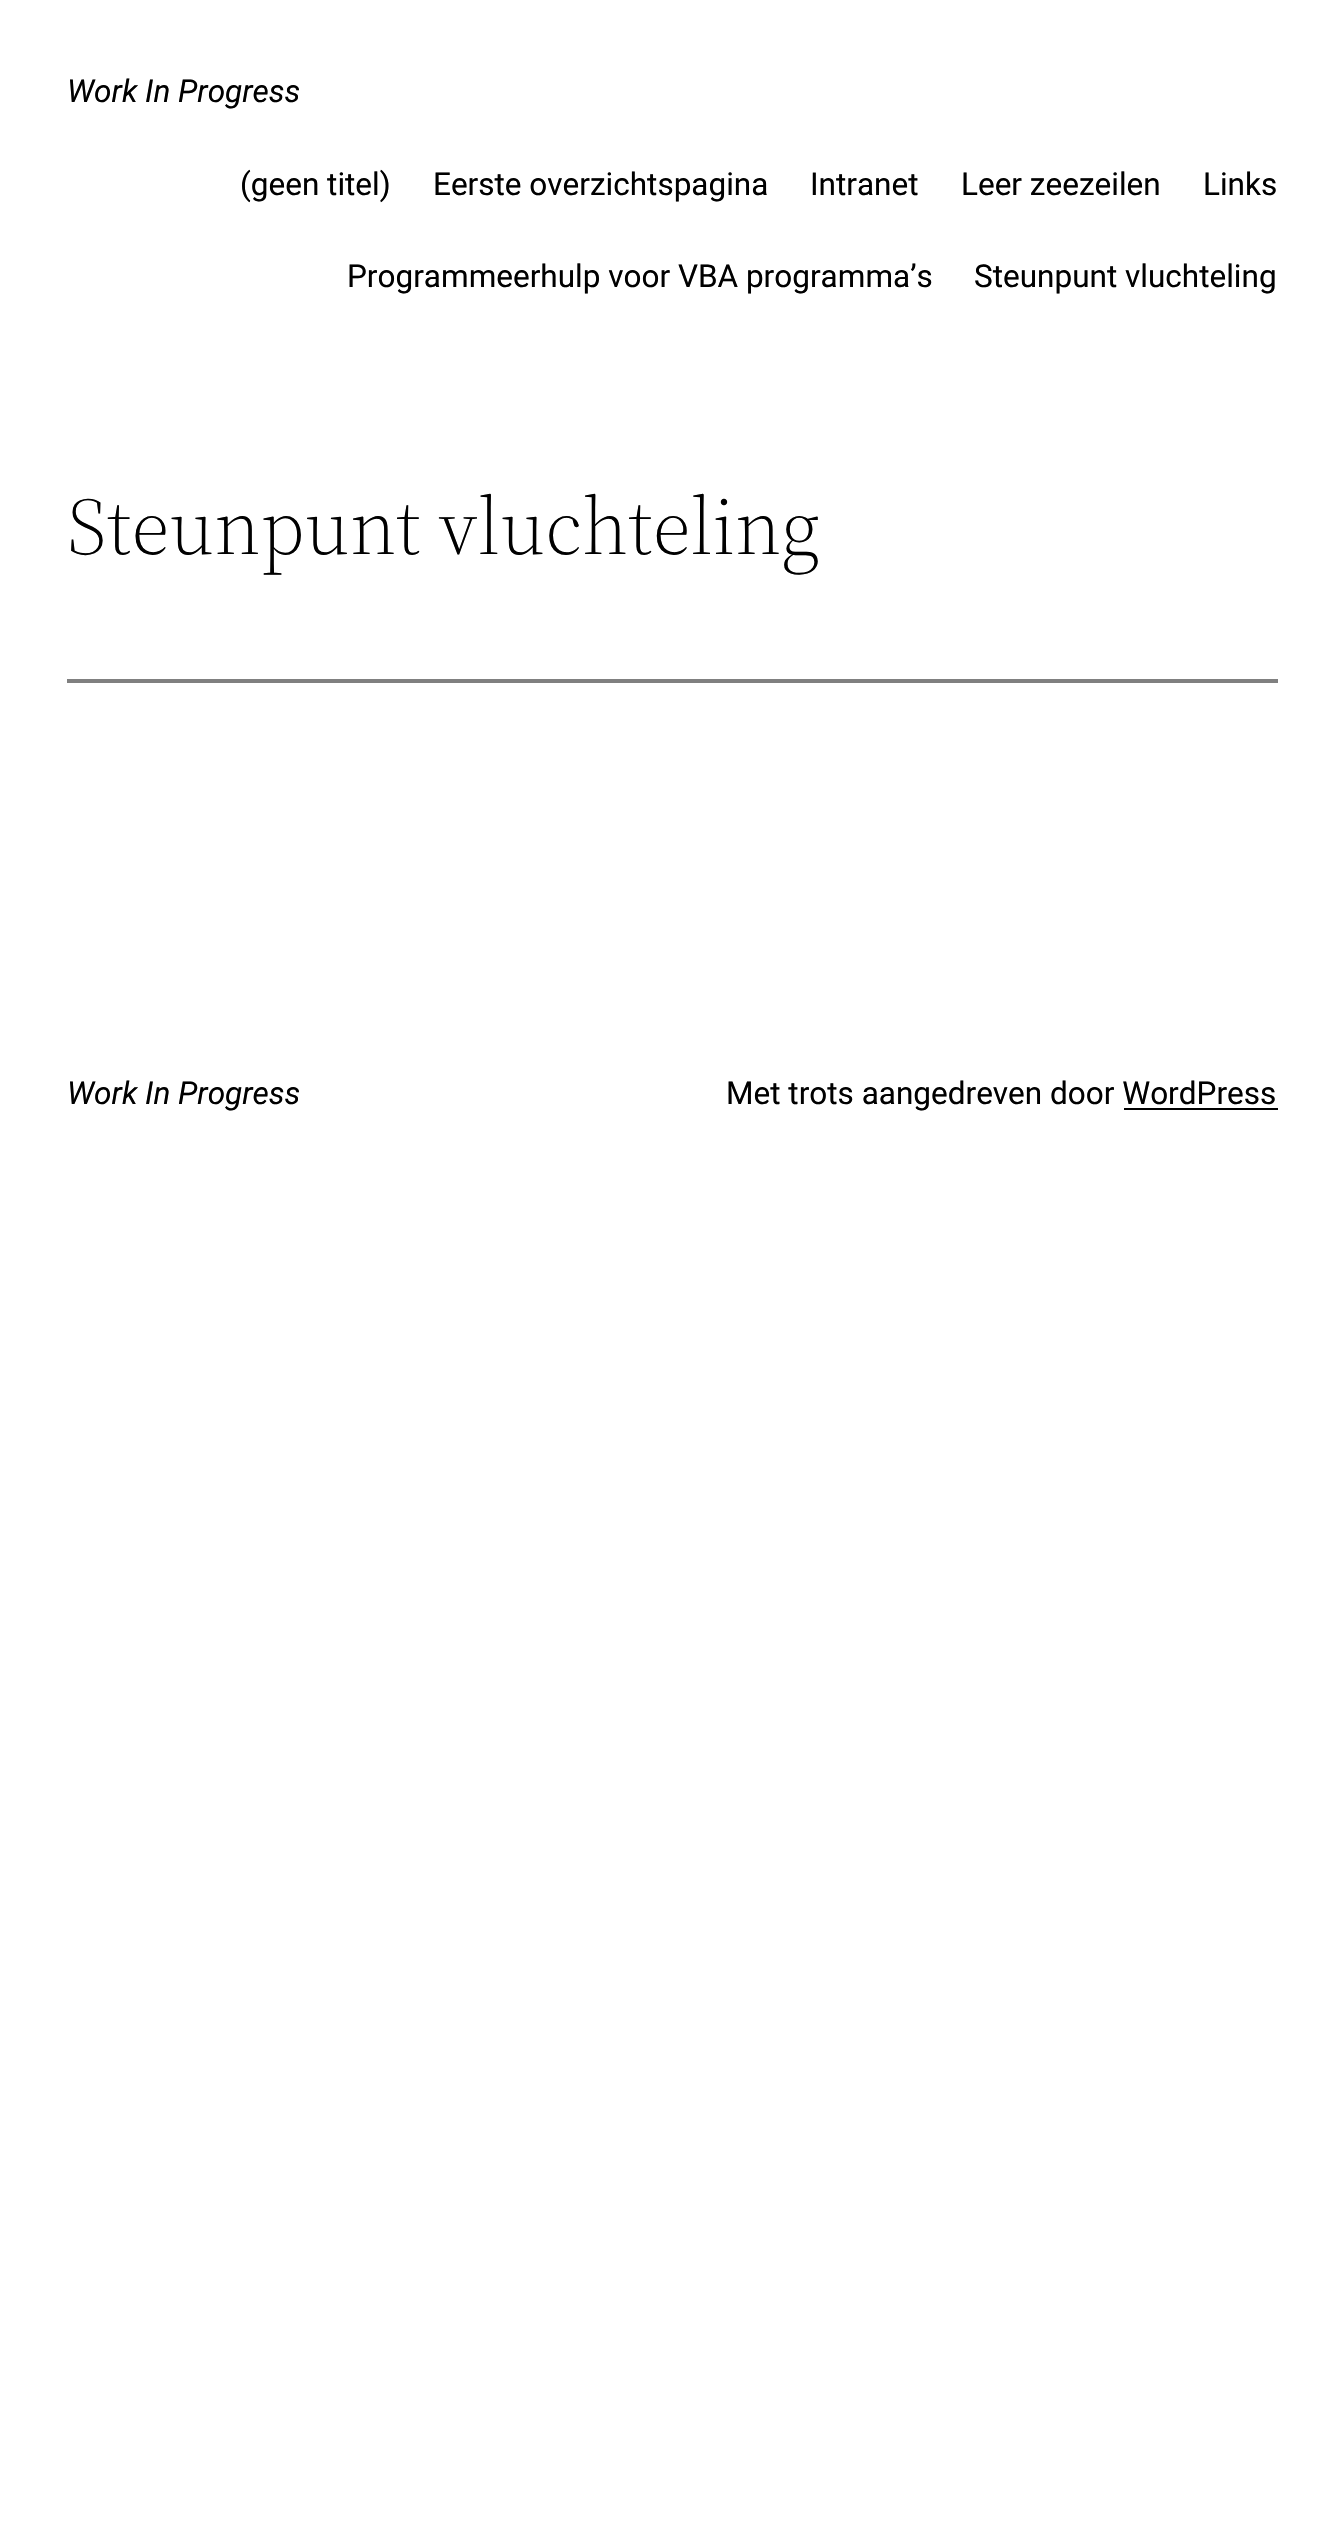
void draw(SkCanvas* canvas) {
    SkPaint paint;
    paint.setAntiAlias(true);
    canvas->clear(0xFFFFFFFF);
    SkFont font1(fontMgr->matchFamilyStyle("Roboto", SkFontStyle::Italic()), 31.5f);
    font1.setSubpixel(true);
    paint.setColor(0xFF000000);
    canvas->drawString("Work In Progress", 67, 102, font1, paint);
    SkFont font2(fontMgr->matchFamilyStyle("Roboto", SkFontStyle::Normal()), 31.5f);
    font2.setSubpixel(true);
    canvas->drawString("(geen titel)", 240, 195, font2, paint);
    canvas->drawString("Eerste overzichtspagina", 433, 195, font2, paint);
    canvas->drawString("Intranet", 810, 195, font2, paint);
    canvas->drawString("Leer zeezeilen", 961, 195, font2, paint);
    canvas->drawString("Links", 1203, 195, font2, paint);
    canvas->drawString("Programmeerhulp voor VBA programma’s", 347, 287, font2, paint);
    canvas->drawString("Steunpunt vluchteling", 974, 287, font2, paint);
    SkFont font3(fontMgr->matchFamilyStyle("Source Serif 4", SkFontStyle(300, SkFontStyle::kNormal_Width, SkFontStyle::kUpright_Slant)), 80.6f);
    font3.setSubpixel(true);
    canvas->drawString("Steunpunt vluchteling", 67, 554, font3, paint);
    paint.setColor(0xFF808080);
    canvas->drawRect(SkRect::MakeXYWH(67, 679, 1211, 4), paint);
    paint.setColor(0xFF000000);
    canvas->drawString("Work In Progress", 67, 1104, font1, paint);
    canvas->drawString("Met trots aangedreven door WordPress", 726, 1104, font2, paint);
    canvas->drawRect(SkRect::MakeXYWH(1124, 1108, 154, 2), paint);
}
